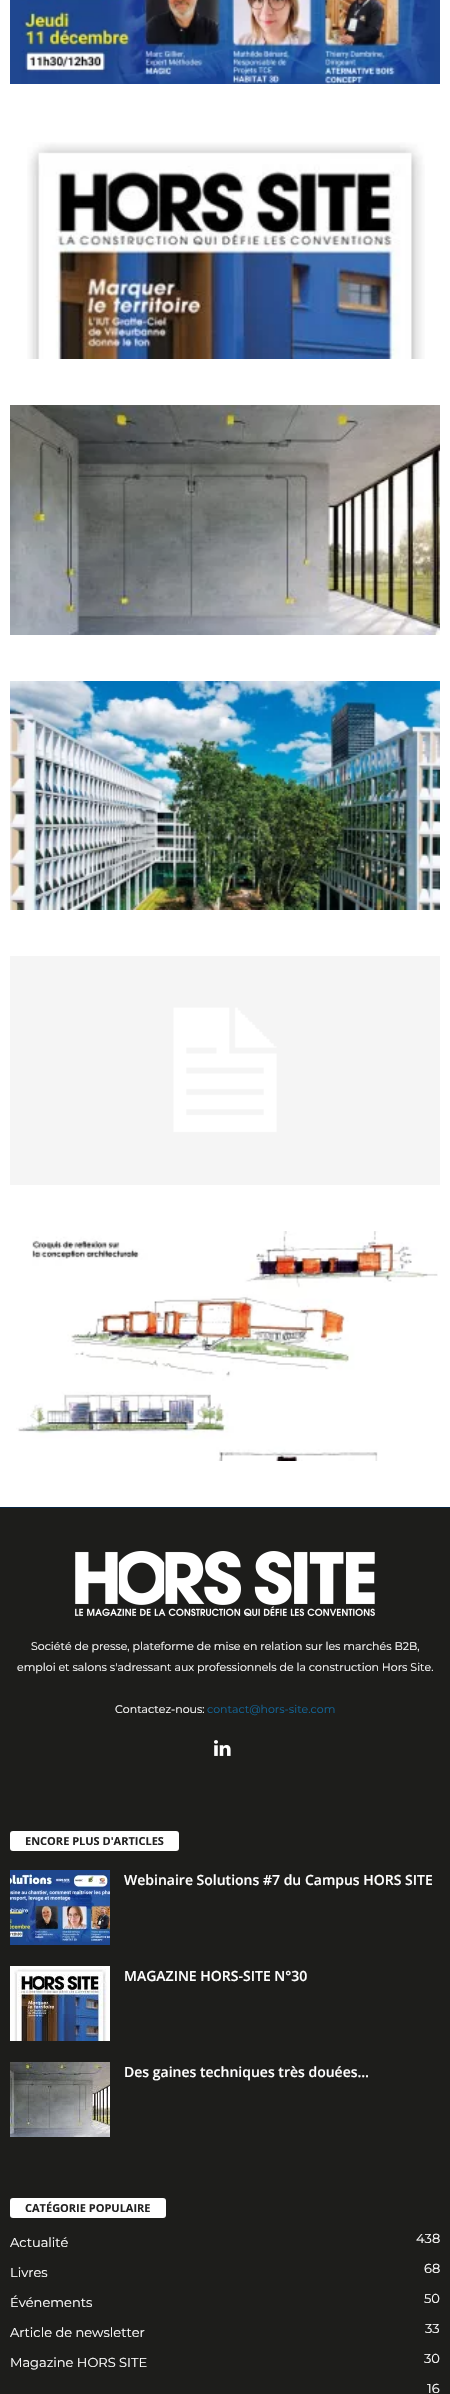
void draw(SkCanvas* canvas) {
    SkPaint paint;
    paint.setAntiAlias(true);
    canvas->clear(0xFFFFFFFF);
    paint.setColor(0xFF062644);
    canvas->drawRect(SkRect::MakeXYWH(0, 1507, 450, 1), paint);
    canvas->drawImageRect(SkImages::DeferredFromEncodedData(SkData::MakeFromFileName("img1.png")), SkRect::MakeXYWH(10, 0, 430, 84), SkSamplingOptions());
    canvas->drawImageRect(SkImages::DeferredFromEncodedData(SkData::MakeFromFileName("img2.png")), SkRect::MakeXYWH(27, 142, 398, 217), SkSamplingOptions());
    canvas->drawImageRect(SkImages::DeferredFromEncodedData(SkData::MakeFromFileName("img3.png")), SkRect::MakeXYWH(10, 405, 430, 230), SkSamplingOptions());
    canvas->drawImageRect(SkImages::DeferredFromEncodedData(SkData::MakeFromFileName("img4.png")), SkRect::MakeXYWH(10, 681, 430, 229), SkSamplingOptions());
    canvas->drawImageRect(SkImages::DeferredFromEncodedData(SkData::MakeFromFileName("img5.png")), SkRect::MakeXYWH(10, 956, 430, 229), SkSamplingOptions());
    canvas->drawImageRect(SkImages::DeferredFromEncodedData(SkData::MakeFromFileName("img6.png")), SkRect::MakeXYWH(16, 1231, 422, 230), SkSamplingOptions());
    paint.setColor(0xFF1D1D1B);
    canvas->drawRect(SkRect::MakeXYWH(0, 1508, 450, 886), paint);
    canvas->drawImageRect(SkImages::DeferredFromEncodedData(SkData::MakeFromFileName("img7.png")), SkRect::MakeXYWH(75, 1551, 300, 65), SkSamplingOptions());
    SkFont font1(fontMgr->matchFamilyStyle("Montserrat", SkFontStyle(100, SkFontStyle::kNormal_Width, SkFontStyle::kUpright_Slant)), 11);
    font1.setSubpixel(true);
    paint.setColor(0xFFFFFFFF);
    canvas->drawString("Société de presse, plateforme de mise en relation sur les marchés B2B,", 31, 1650, font1, paint);
    canvas->drawString("emploi et salons s'adressant aux professionnels de la construction Hors Site.", 17, 1671, font1, paint);
    canvas->drawString("Contactez-nous:", 115, 1713, font1, paint);
    paint.setColor(0xFF116598);
    canvas->drawString("contact@hors-site.com", 207, 1713, font1, paint);
    canvas->drawImageRect(SkImages::DeferredFromEncodedData(SkData::MakeFromFileName("img8.png")), SkRect::MakeXYWH(214, 1740, 17, 16), SkSamplingOptions());
    paint.setColor(0xFFFFFFFF);
    canvas->drawRoundRect(SkRect::MakeXYWH(10, 1831, 169, 20), 3, 3, paint);
    SkFont font2(fontMgr->matchFamilyStyle("Open Sans", SkFontStyle::Bold()), 11);
    font2.setSubpixel(true);
    paint.setColor(0xFF222222);
    canvas->drawString("ENCORE PLUS D'ARTICLES", 25, 1845, font2, paint);
    canvas->drawImageRect(SkImages::DeferredFromEncodedData(SkData::MakeFromFileName("img9.png")), SkRect::MakeXYWH(10, 1870, 100, 75), SkSamplingOptions());
    SkFont font3(fontMgr->matchFamilyStyle("Open Sans", SkFontStyle(600, SkFontStyle::kNormal_Width, SkFontStyle::kUpright_Slant)), 14);
    font3.setSubpixel(true);
    paint.setColor(0xFFFFFFFF);
    canvas->drawString("Webinaire Solutions #7 du Campus HORS SITE", 124, 1885, font3, paint);
    canvas->drawImageRect(SkImages::DeferredFromEncodedData(SkData::MakeFromFileName("img10.png")), SkRect::MakeXYWH(10, 1966, 100, 75), SkSamplingOptions());
    canvas->drawString("MAGAZINE HORS-SITE N°30", 124, 1981, font3, paint);
    canvas->drawImageRect(SkImages::DeferredFromEncodedData(SkData::MakeFromFileName("img11.png")), SkRect::MakeXYWH(10, 2062, 100, 75), SkSamplingOptions());
    canvas->drawString("Des gaines techniques très douées…", 124, 2077, font3, paint);
    canvas->drawRoundRect(SkRect::MakeXYWH(10, 2198, 156, 20), 3, 3, paint);
    paint.setColor(0xFF222222);
    canvas->drawString("CATÉGORIE POPULAIRE", 25, 2212, font2, paint);
    SkFont font4(fontMgr->matchFamilyStyle("Montserrat", SkFontStyle(100, SkFontStyle::kNormal_Width, SkFontStyle::kUpright_Slant)), 13);
    font4.setSubpixel(true);
    paint.setColor(0xFFFFFFFF);
    canvas->drawString("Actualité", 10, 2247, font4, paint);
    canvas->drawString("438", 416, 2243, font4, paint);
    canvas->drawString("Livres", 10, 2277, font4, paint);
    canvas->drawString("68", 424, 2273, font4, paint);
    canvas->drawString("Événements", 10, 2307, font4, paint);
    canvas->drawString("50", 424, 2303, font4, paint);
    canvas->drawString("Article de newsletter", 10, 2337, font4, paint);
    canvas->drawString("33", 425, 2333, font4, paint);
    canvas->drawString("Magazine HORS SITE", 10, 2367, font4, paint);
    canvas->drawString("30", 424, 2363, font4, paint);
    canvas->drawString("16", 427, 2393, font4, paint);
}
